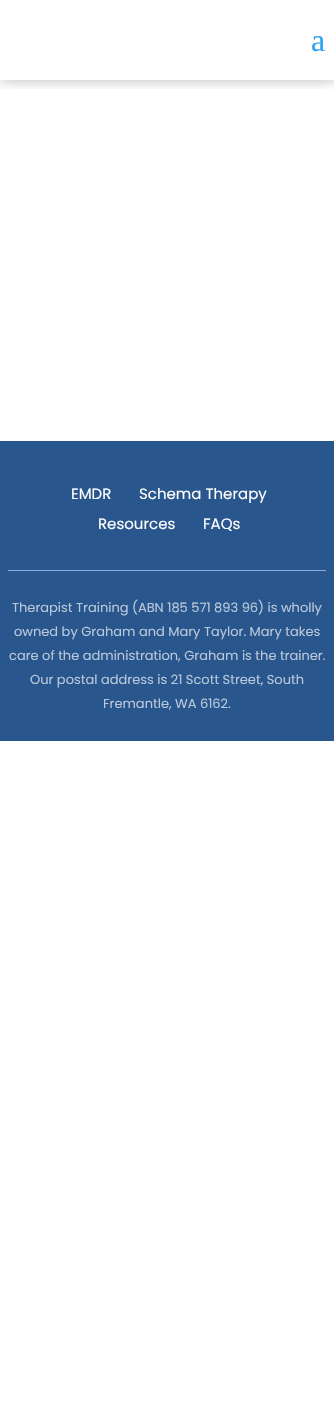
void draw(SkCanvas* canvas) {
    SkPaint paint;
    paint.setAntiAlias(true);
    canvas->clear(0xFFFFFFFF);
    canvas->save();
    canvas->clipRect(SkRect::MakeXYWH(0, 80, 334, 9));
    paint.setColor(0x40000000);
    paint.setMaskFilter(SkMaskFilter::MakeBlur(kNormal_SkBlurStyle, 6));
    canvas->drawRect(SkRect::MakeXYWH(1, 1, 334, 80), paint);
    paint.setMaskFilter(nullptr);
    canvas->restore();
    SkFont font1(fontMgr->matchFamilyStyle("Liberation Serif", SkFontStyle::Normal()), 32);
    font1.setSubpixel(true);
    paint.setColor(0xFF2EA3F2);
    canvas->drawString("a", 311, 51, font1, paint);
    paint.setColor(0xFF29568D);
    canvas->drawRect(SkRect::MakeXYWH(0, 441, 334, 300), paint);
    SkFont font2(fontMgr->matchFamilyStyle("Poppins", SkFontStyle::Normal()), 15);
    font2.setSubpixel(true);
    paint.setColor(0xFFFFFFFF);
    canvas->drawString("EMDR", 71, 499, font2, paint);
    canvas->drawString("Schema Therapy", 139, 499, font2, paint);
    canvas->drawString("Resources", 98, 529, font2, paint);
    canvas->drawString("FAQs", 203, 529, font2, paint);
    paint.setColor(0xFF8BADDB);
    canvas->drawRect(SkRect::MakeXYWH(8, 570, 318, 1), paint);
    SkFont font3(fontMgr->matchFamilyStyle("Poppins", SkFontStyle::Normal()), 13);
    font3.setSubpixel(true);
    paint.setColor(0xFFB8C7D9);
    canvas->drawString("Therapist Training (ABN 185 571 893 96) is wholly", 12, 612, font3, paint);
    canvas->drawString("owned by Graham and Mary Taylor. Mary takes", 14, 636, font3, paint);
    canvas->drawString("care of the administration, Graham is the trainer.", 9, 660, font3, paint);
    canvas->drawString("Our postal address is 21 Scott Street, South", 30, 684, font3, paint);
    canvas->drawString("Fremantle, WA 6162.", 103, 708, font3, paint);
}
